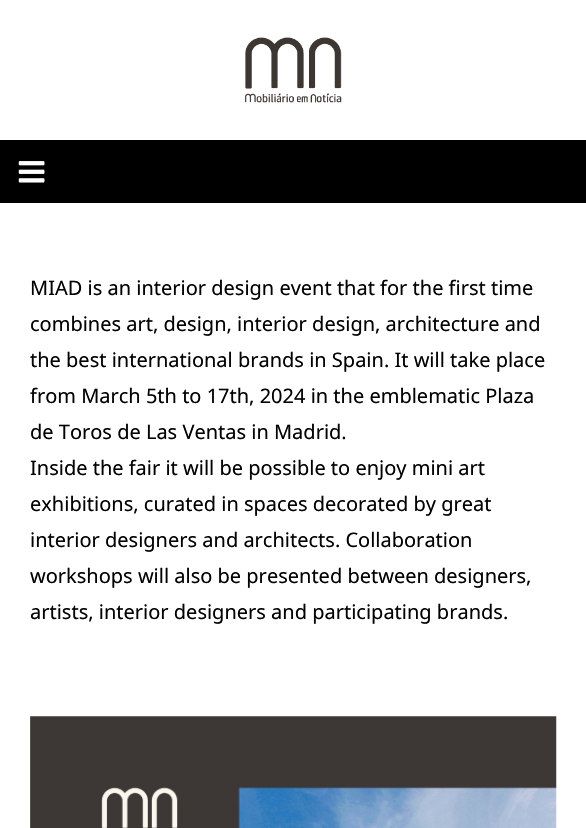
void draw(SkCanvas* canvas) {
    SkPaint paint;
    paint.setAntiAlias(true);
    canvas->clear(0xFFFFFFFF);
    canvas->drawImageRect(SkImages::DeferredFromEncodedData(SkData::MakeFromFileName("img1.png")), SkRect::MakeXYWH(245, 37, 97, 66), SkSamplingOptions());
    paint.setColor(0xFF000000);
    canvas->drawRect(SkRect::MakeXYWH(0, 140, 586, 63), paint);
    canvas->drawImageRect(SkImages::DeferredFromEncodedData(SkData::MakeFromFileName("img2.png")), SkRect::MakeXYWH(18, 161, 27, 22), SkSamplingOptions());
    SkFont font1(fontMgr->matchFamilyStyle("Noto Sans", SkFontStyle::Normal()), 20);
    font1.setSubpixel(true);
    paint.setColor(0xFF010101);
    canvas->drawString("MIAD is an interior design event that for the first time", 30, 295, font1, paint);
    canvas->drawString("combines art, design, interior design, architecture and", 30, 331, font1, paint);
    canvas->drawString("the best international brands in Spain. It will take place", 30, 367, font1, paint);
    canvas->drawString("from March 5th to 17th, 2024 in the emblematic Plaza", 30, 403, font1, paint);
    canvas->drawString("de Toros de Las Ventas in Madrid.", 30, 439, font1, paint);
    canvas->drawString("Inside the fair it will be possible to enjoy mini art", 30, 475, font1, paint);
    canvas->drawString("exhibitions, curated in spaces decorated by great", 30, 511, font1, paint);
    canvas->drawString("interior designers and architects. Collaboration", 30, 547, font1, paint);
    canvas->drawString("workshops will also be presented between designers,", 30, 583, font1, paint);
    canvas->drawString("artists, interior designers and participating brands.", 30, 619, font1, paint);
    canvas->drawImageRect(SkImages::DeferredFromEncodedData(SkData::MakeFromFileName("img3.png")), SkRect::MakeXYWH(30, 716, 527, 112), SkSamplingOptions());
}
